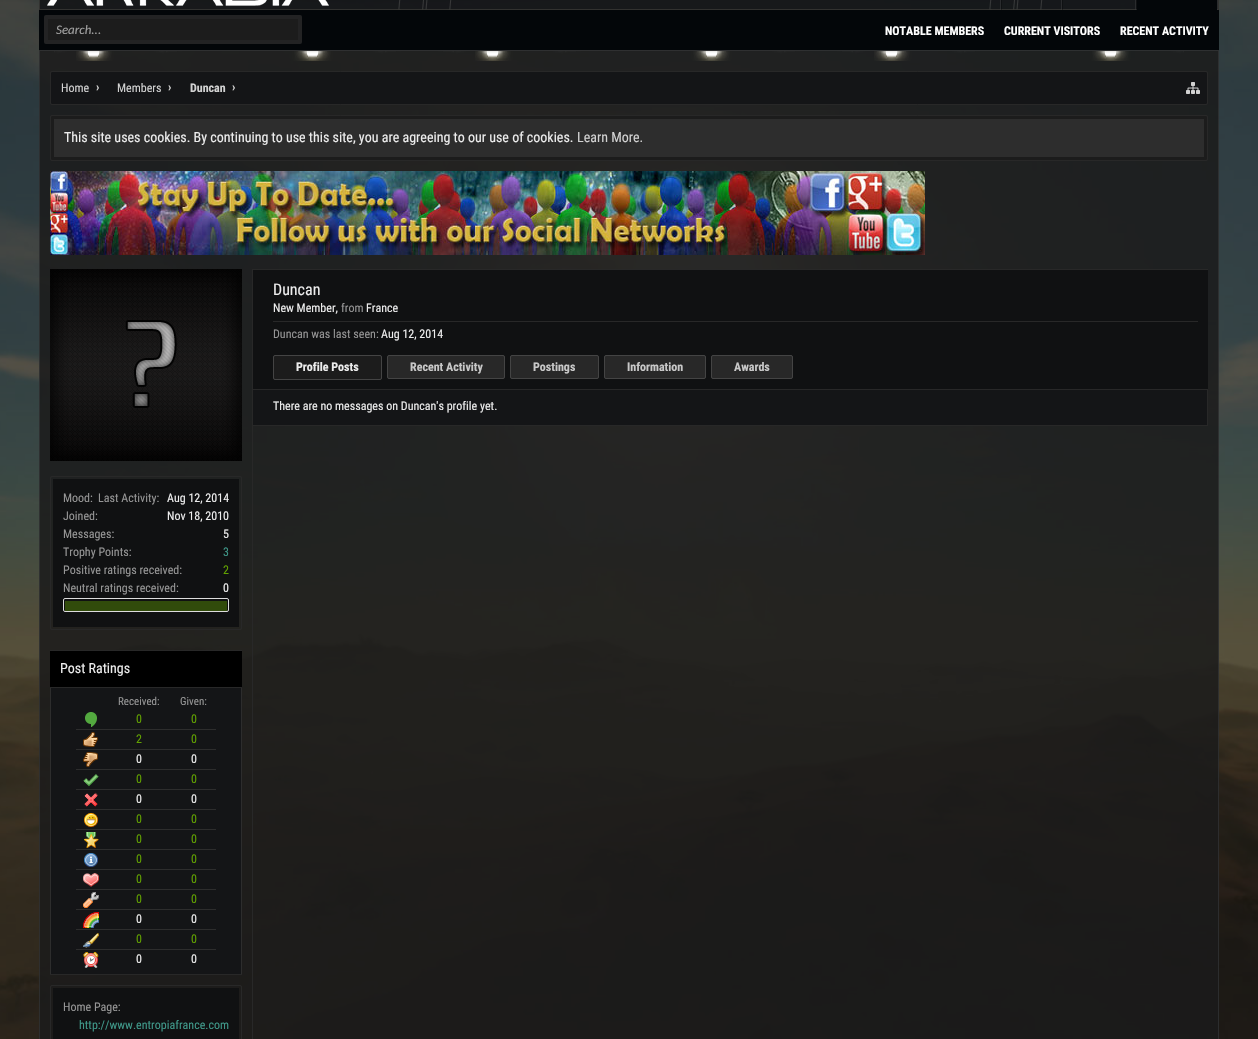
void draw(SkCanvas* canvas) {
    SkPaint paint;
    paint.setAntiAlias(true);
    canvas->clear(0xFF151515);
    canvas->drawImageRect(SkImages::DeferredFromEncodedData(SkData::MakeFromFileName("img1.png")), SkRect::MakeXYWH(0, 0, 1258, 1039), SkSamplingOptions());
    paint.setColor(0xFF030609);
    canvas->drawRect(SkRect::MakeXYWH(39, 10, 1180, 40), paint);
    paint.setColor(0xFF232324);
    canvas->drawRoundRect(SkRect::MakeXYWH(44, 15, 258, 29), 2, 2, paint);
    paint.setColor(0xFF1C1C1C);
    canvas->drawRect(SkRect::MakeXYWH(48, 19, 250, 21), paint);
    SkFont font1(fontMgr->matchFamilyStyle("Carlito", SkFontStyle::Italic()), 13);
    font1.setSubpixel(true);
    paint.setColor(0xFFA0A0A0);
    canvas->drawString("Search...", 56, 34, font1, paint);
    paint.setColor(0xE6131416);
    canvas->drawRect(SkRect::MakeXYWH(39, 0, 1180, 10), paint);
    canvas->drawImageRect(SkImages::DeferredFromEncodedData(SkData::MakeFromFileName("img2.png")), SkRect::MakeXYWH(398, 0, 645, 10), SkSamplingOptions());
    paint.setStyle(SkPaint::kStroke_Style);
    paint.setStrokeWidth(1);
    paint.setColor(0xCC383835);
    canvas->drawRect(SkRect::MakeXYWH(39.5f, -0.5f, 1179, 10), paint);
    canvas->drawImageRect(SkImages::DeferredFromEncodedData(SkData::MakeFromFileName("img3.png")), SkRect::MakeXYWH(47, 0, 282, 6), SkSamplingOptions());
    paint.setStyle(SkPaint::kFill_Style);
    paint.setColor(0x853B3E40);
    canvas->drawRect(SkRect::MakeXYWH(1000, 0, 1, 10), paint);
    canvas->drawRect(SkRect::MakeXYWH(1061, 0, 1, 10), paint);
    paint.setColor(0x4D000000);
    canvas->drawRect(SkRect::MakeXYWH(1001, 0, 1, 10), paint);
    paint.setColor(0x853B3E40);
    canvas->drawRect(SkRect::MakeXYWH(1135, 0, 1, 10), paint);
    paint.setColor(0x4D000000);
    canvas->drawRect(SkRect::MakeXYWH(1062, 0, 1, 10), paint);
    paint.setColor(0x853B3E40);
    canvas->drawRect(SkRect::MakeXYWH(1217, 0, 1, 10), paint);
    paint.setColor(0x4D000000);
    canvas->drawRect(SkRect::MakeXYWH(1136, 0, 1, 10), paint);
    paint.setColor(0xFF030609);
    canvas->drawRect(SkRect::MakeXYWH(1137, 0, 80, 10), paint);
    SkFont font2(fontMgr->matchFamilyStyle("Roboto Condensed", SkFontStyle::Bold()), 12);
    font2.setSubpixel(true);
    paint.setColor(0xFFFFFFFF);
    canvas->drawString("NOTABLE MEMBERS", 885, 35, font2, paint);
    canvas->drawString("CURRENT VISITORS", 1004, 35, font2, paint);
    canvas->drawString("RECENT ACTIVITY", 1120, 35, font2, paint);
    paint.setColor(0xD91A1A1A);
    canvas->drawRect(SkRect::MakeXYWH(39, 50, 1180, 989), paint);
    canvas->drawImageRect(SkImages::DeferredFromEncodedData(SkData::MakeFromFileName("img4.png")), SkRect::MakeXYWH(54, 51, 1130, 10), SkSamplingOptions());
    paint.setStyle(SkPaint::kStroke_Style);
    paint.setColor(0x853B3E40);
    canvas->drawRect(SkRect::MakeXYWH(39.5f, 50.5f, 1179, 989), paint);
    paint.setStyle(SkPaint::kFill_Style);
    paint.setColor(0xFF141517);
    canvas->drawRoundRect(SkRect::MakeXYWH(50.5f, 71.5f, 1157, 33), 1.5f, 1.5f, paint);
    paint.setStyle(SkPaint::kStroke_Style);
    paint.setColor(0xFF282828);
    canvas->drawRoundRect(SkRect::MakeXYWH(50.5f, 71.5f, 1157, 33), 1.5f, 1.5f, paint);
    SkFont font3(fontMgr->matchFamilyStyle("Roboto Condensed", SkFontStyle::Normal()), 12);
    font3.setSubpixel(true);
    paint.setStyle(SkPaint::kFill_Style);
    paint.setColor(0xFFD2D2D2);
    canvas->drawString("Home", 61, 92, font3, paint);
    canvas->drawString("›", 96, 91, font2, paint);
    canvas->drawString("Members", 117, 92, font3, paint);
    canvas->drawString("›", 168, 91, font2, paint);
    canvas->drawString("Duncan", 190, 92, font2, paint);
    canvas->drawString("›", 232, 91, font2, paint);
    canvas->drawImageRect(SkImages::DeferredFromEncodedData(SkData::MakeFromFileName("img5.png")), SkRect::MakeXYWH(1186, 82, 14, 12), SkSamplingOptions());
    paint.setColor(0xFF1C1C1C);
    canvas->drawRoundRect(SkRect::MakeXYWH(50.5f, 115.5f, 1157, 45), 1.5f, 1.5f, paint);
    paint.setStyle(SkPaint::kStroke_Style);
    paint.setColor(0xFF282828);
    canvas->drawRoundRect(SkRect::MakeXYWH(50.5f, 115.5f, 1157, 45), 1.5f, 1.5f, paint);
    paint.setStyle(SkPaint::kFill_Style);
    paint.setColor(0xFF2D2D2D);
    canvas->drawRect(SkRect::MakeXYWH(54, 119, 1150, 38), paint);
    SkFont font4(fontMgr->matchFamilyStyle("Roboto Condensed", SkFontStyle::Normal()), 14);
    font4.setSubpixel(true);
    paint.setColor(0xFFEDEDED);
    canvas->drawString("This site uses cookies. By continuing to use this site, you are agreeing to our use of cookies.", 64, 142, font4, paint);
    paint.setColor(0xFFD2D2D2);
    canvas->drawString("Learn More.", 577, 142, font4, paint);
    canvas->drawImageRect(SkImages::DeferredFromEncodedData(SkData::MakeFromFileName("img6.png")), SkRect::MakeXYWH(50, 171, 875, 84), SkSamplingOptions());
    paint.setColor(0xFF282828);
    canvas->drawRect(SkRect::MakeXYWH(253, 269, 955, 1), paint);
    paint.setColor(0xFF101112);
    canvas->drawRect(SkRect::MakeXYWH(253, 270, 955, 119), paint);
    SkFont font5(fontMgr->matchFamilyStyle("Roboto Condensed", SkFontStyle::Normal()), 16);
    font5.setSubpixel(true);
    paint.setColor(0xFFEDEDED);
    canvas->drawString("Duncan", 273, 295, font5, paint);
    canvas->drawString("New Member,", 273, 312, font3, paint);
    paint.setColor(0xFF969696);
    canvas->drawString("from", 341, 312, font3, paint);
    paint.setColor(0xFFEDEDED);
    canvas->drawString("France", 366, 312, font3, paint);
    paint.setColor(0xFF282828);
    canvas->drawRect(SkRect::MakeXYWH(273, 321, 925, 1), paint);
    paint.setColor(0xFF969696);
    canvas->drawString("Duncan was last seen:", 273, 338, font3, paint);
    paint.setColor(0xFFEDEDED);
    canvas->drawString("Aug 12, 2014", 381, 338, font3, paint);
    paint.setColor(0xFF282828);
    canvas->drawRect(SkRect::MakeXYWH(1207, 389, 1, 37), paint);
    canvas->drawRect(SkRect::MakeXYWH(253, 389, 955, 1), paint);
    paint.setColor(0xFF1C1C1C);
    canvas->drawRoundRect(SkRect::MakeXYWH(273.5f, 355.5f, 108, 24), 1.5f, 1.5f, paint);
    paint.setStyle(SkPaint::kStroke_Style);
    paint.setColor(0xFF444444);
    canvas->drawRoundRect(SkRect::MakeXYWH(273.5f, 355.5f, 108, 24), 1.5f, 1.5f, paint);
    paint.setStyle(SkPaint::kFill_Style);
    paint.setColor(0xFFEDEDED);
    canvas->drawString("Profile Posts", 296, 371, font2, paint);
    paint.setColor(0xFF282828);
    canvas->drawRoundRect(SkRect::MakeXYWH(387.5f, 355.5f, 117, 23), 1.5f, 1.5f, paint);
    paint.setStyle(SkPaint::kStroke_Style);
    paint.setColor(0xFF444444);
    canvas->drawRoundRect(SkRect::MakeXYWH(387.5f, 355.5f, 117, 23), 1.5f, 1.5f, paint);
    paint.setStyle(SkPaint::kFill_Style);
    paint.setColor(0xFFC8C8C8);
    canvas->drawString("Recent Activity", 410, 371, font2, paint);
    paint.setColor(0xFF282828);
    canvas->drawRoundRect(SkRect::MakeXYWH(510.5f, 355.5f, 88, 23), 1.5f, 1.5f, paint);
    paint.setStyle(SkPaint::kStroke_Style);
    paint.setColor(0xFF444444);
    canvas->drawRoundRect(SkRect::MakeXYWH(510.5f, 355.5f, 88, 23), 1.5f, 1.5f, paint);
    paint.setStyle(SkPaint::kFill_Style);
    paint.setColor(0xFFC8C8C8);
    canvas->drawString("Postings", 533, 371, font2, paint);
    paint.setColor(0xFF282828);
    canvas->drawRoundRect(SkRect::MakeXYWH(604.5f, 355.5f, 101, 23), 1.5f, 1.5f, paint);
    paint.setStyle(SkPaint::kStroke_Style);
    paint.setColor(0xFF444444);
    canvas->drawRoundRect(SkRect::MakeXYWH(604.5f, 355.5f, 101, 23), 1.5f, 1.5f, paint);
    paint.setStyle(SkPaint::kFill_Style);
    paint.setColor(0xFFC8C8C8);
    canvas->drawString("Information", 627, 371, font2, paint);
    paint.setColor(0xFF282828);
    canvas->drawRoundRect(SkRect::MakeXYWH(711.5f, 355.5f, 81, 23), 1.5f, 1.5f, paint);
    paint.setStyle(SkPaint::kStroke_Style);
    paint.setColor(0xFF444444);
    canvas->drawRoundRect(SkRect::MakeXYWH(711.5f, 355.5f, 81, 23), 1.5f, 1.5f, paint);
    paint.setStyle(SkPaint::kFill_Style);
    paint.setColor(0xFFC8C8C8);
    canvas->drawString("Awards", 734, 371, font2, paint);
    paint.setColor(0xFF141517);
    canvas->drawRect(SkRect::MakeXYWH(253, 390, 954, 35), paint);
    paint.setColor(0xFF282828);
    canvas->drawRect(SkRect::MakeXYWH(253, 425, 955, 1), paint);
    paint.setColor(0xFFEDEDED);
    canvas->drawString("There are no messages on Duncan's profile yet.", 273, 410, font3, paint);
    paint.setColor(0xFF282828);
    canvas->drawRect(SkRect::MakeXYWH(252, 269, 1, 770), paint);
    canvas->drawImageRect(SkImages::DeferredFromEncodedData(SkData::MakeFromFileName("img7.png")), SkRect::MakeXYWH(50, 269, 192, 192), SkSamplingOptions());
    paint.setStyle(SkPaint::kStroke_Style);
    canvas->drawRoundRect(SkRect::MakeXYWH(50.5f, 476.5f, 191, 153), 1.5f, 1.5f, paint);
    paint.setStyle(SkPaint::kFill_Style);
    paint.setColor(0xFF101112);
    canvas->drawRect(SkRect::MakeXYWH(53, 479, 186, 148), paint);
    paint.setColor(0xFF969696);
    canvas->drawString("Mood:", 63, 502, font3, paint);
    canvas->drawString("Last Activity:", 98, 502, font3, paint);
    paint.setColor(0xFFEDEDED);
    canvas->drawString("Aug 12, 2014", 167, 502, font3, paint);
    paint.setColor(0xFF969696);
    canvas->drawString("Joined:", 63, 520, font3, paint);
    paint.setColor(0xFFEDEDED);
    canvas->drawString("Nov 18, 2010", 167, 520, font3, paint);
    paint.setColor(0xFF969696);
    canvas->drawString("Messages:", 63, 538, font3, paint);
    paint.setColor(0xFFEDEDED);
    canvas->drawString("5", 223, 538, font3, paint);
    paint.setColor(0xFF969696);
    canvas->drawString("Trophy Points:", 63, 556, font3, paint);
    paint.setColor(0xFF3F9889);
    canvas->drawString("3", 223, 556, font3, paint);
    paint.setColor(0xFF969696);
    canvas->drawString("Positive ratings received:", 63, 574, font3, paint);
    paint.setColor(0xFF62A201);
    canvas->drawString("2", 223, 574, font3, paint);
    paint.setColor(0xFF969696);
    canvas->drawString("Neutral ratings received:", 63, 592, font3, paint);
    paint.setColor(0xFFEDEDED);
    canvas->drawString("0", 223, 592, font3, paint);
    paint.setStyle(SkPaint::kStroke_Style);
    paint.setColor(0xFFDDDDDD);
    canvas->drawRoundRect(SkRect::MakeXYWH(63.5f, 598.5f, 165, 13), 1.5f, 1.5f, paint);
    paint.setStyle(SkPaint::kFill_Style);
    paint.setColor(0xFF314B0B);
    canvas->drawRect(SkRect::MakeXYWH(65, 601, 162, 10), paint);
    paint.setColor(0xFF000000);
    canvas->drawRect(SkRect::MakeXYWH(50, 651, 192, 36), paint);
    paint.setColor(0xFF282828);
    canvas->drawRect(SkRect::MakeXYWH(50, 650, 192, 1), paint);
    canvas->drawRect(SkRect::MakeXYWH(50, 687, 192, 1), paint);
    paint.setColor(0xFFEDEDED);
    canvas->drawString("Post Ratings", 60, 673, font4, paint);
    paint.setColor(0xFF141517);
    canvas->drawRect(SkRect::MakeXYWH(51, 688, 190, 286), paint);
    paint.setColor(0xFF282828);
    canvas->drawRect(SkRect::MakeXYWH(50, 974, 192, 1), paint);
    paint.setColor(0xFF2D2D2D);
    canvas->drawRect(SkRect::MakeXYWH(241, 688, 1, 286), paint);
    canvas->drawRect(SkRect::MakeXYWH(50, 688, 1, 286), paint);
    SkFont font6(fontMgr->matchFamilyStyle("Roboto Condensed", SkFontStyle::Normal()), 11);
    font6.setSubpixel(true);
    paint.setColor(0xFF969696);
    canvas->drawString("Received:", 118, 705, font6, paint);
    canvas->drawString("Given:", 180, 705, font6, paint);
    canvas->drawImageRect(SkImages::DeferredFromEncodedData(SkData::MakeFromFileName("img8.png")), SkRect::MakeXYWH(85, 712, 12, 15), SkSamplingOptions());
    paint.setColor(0xFF62A201);
    canvas->drawString("0", 136, 723, font3, paint);
    canvas->drawString("0", 191, 723, font3, paint);
    paint.setColor(0xFF2D2D2D);
    canvas->drawRect(SkRect::MakeXYWH(76, 729, 140, 1), paint);
    canvas->drawImageRect(SkImages::DeferredFromEncodedData(SkData::MakeFromFileName("img9.png")), SkRect::MakeXYWH(83, 732, 15, 15), SkSamplingOptions());
    paint.setColor(0xFF62A201);
    canvas->drawString("2", 136, 743, font3, paint);
    canvas->drawString("0", 191, 743, font3, paint);
    paint.setColor(0xFF2D2D2D);
    canvas->drawRect(SkRect::MakeXYWH(76, 749, 140, 1), paint);
    canvas->drawImageRect(SkImages::DeferredFromEncodedData(SkData::MakeFromFileName("img10.png")), SkRect::MakeXYWH(83, 752, 15, 15), SkSamplingOptions());
    paint.setColor(0xFFEDEDED);
    canvas->drawString("0", 136, 763, font3, paint);
    canvas->drawString("0", 191, 763, font3, paint);
    paint.setColor(0xFF2D2D2D);
    canvas->drawRect(SkRect::MakeXYWH(76, 769, 140, 1), paint);
    canvas->drawImageRect(SkImages::DeferredFromEncodedData(SkData::MakeFromFileName("img11.png")), SkRect::MakeXYWH(83, 774, 16, 13), SkSamplingOptions());
    paint.setColor(0xFF62A201);
    canvas->drawString("0", 136, 783, font3, paint);
    canvas->drawString("0", 191, 783, font3, paint);
    paint.setColor(0xFF2D2D2D);
    canvas->drawRect(SkRect::MakeXYWH(76, 789, 140, 1), paint);
    canvas->drawImageRect(SkImages::DeferredFromEncodedData(SkData::MakeFromFileName("img12.png")), SkRect::MakeXYWH(84, 792, 14, 15), SkSamplingOptions());
    paint.setColor(0xFFEDEDED);
    canvas->drawString("0", 136, 803, font3, paint);
    canvas->drawString("0", 191, 803, font3, paint);
    paint.setColor(0xFF2D2D2D);
    canvas->drawRect(SkRect::MakeXYWH(76, 809, 140, 1), paint);
    canvas->drawImageRect(SkImages::DeferredFromEncodedData(SkData::MakeFromFileName("img13.png")), SkRect::MakeXYWH(84, 813, 14, 14), SkSamplingOptions());
    paint.setColor(0xFF62A201);
    canvas->drawString("0", 136, 823, font3, paint);
    canvas->drawString("0", 191, 823, font3, paint);
    paint.setColor(0xFF2D2D2D);
    canvas->drawRect(SkRect::MakeXYWH(76, 829, 140, 1), paint);
    canvas->drawImageRect(SkImages::DeferredFromEncodedData(SkData::MakeFromFileName("img14.png")), SkRect::MakeXYWH(84, 832, 15, 16), SkSamplingOptions());
    paint.setColor(0xFF62A201);
    canvas->drawString("0", 136, 843, font3, paint);
    canvas->drawString("0", 191, 843, font3, paint);
    paint.setColor(0xFF2D2D2D);
    canvas->drawRect(SkRect::MakeXYWH(76, 849, 140, 1), paint);
    canvas->drawImageRect(SkImages::DeferredFromEncodedData(SkData::MakeFromFileName("img15.png")), SkRect::MakeXYWH(84, 853, 14, 14), SkSamplingOptions());
    paint.setColor(0xFF62A201);
    canvas->drawString("0", 136, 863, font3, paint);
    canvas->drawString("0", 191, 863, font3, paint);
    paint.setColor(0xFF2D2D2D);
    canvas->drawRect(SkRect::MakeXYWH(76, 869, 140, 1), paint);
    canvas->drawImageRect(SkImages::DeferredFromEncodedData(SkData::MakeFromFileName("img16.png")), SkRect::MakeXYWH(83, 873, 16, 14), SkSamplingOptions());
    paint.setColor(0xFF62A201);
    canvas->drawString("0", 136, 883, font3, paint);
    canvas->drawString("0", 191, 883, font3, paint);
    paint.setColor(0xFF2D2D2D);
    canvas->drawRect(SkRect::MakeXYWH(76, 889, 140, 1), paint);
    canvas->drawImageRect(SkImages::DeferredFromEncodedData(SkData::MakeFromFileName("img17.png")), SkRect::MakeXYWH(83, 892, 16, 16), SkSamplingOptions());
    paint.setColor(0xFF62A201);
    canvas->drawString("0", 136, 903, font3, paint);
    canvas->drawString("0", 191, 903, font3, paint);
    paint.setColor(0xFF2D2D2D);
    canvas->drawRect(SkRect::MakeXYWH(76, 909, 140, 1), paint);
    canvas->drawImageRect(SkImages::DeferredFromEncodedData(SkData::MakeFromFileName("img18.png")), SkRect::MakeXYWH(83, 912, 16, 16), SkSamplingOptions());
    paint.setColor(0xFFEDEDED);
    canvas->drawString("0", 136, 923, font3, paint);
    canvas->drawString("0", 191, 923, font3, paint);
    paint.setColor(0xFF2D2D2D);
    canvas->drawRect(SkRect::MakeXYWH(76, 929, 140, 1), paint);
    canvas->drawImageRect(SkImages::DeferredFromEncodedData(SkData::MakeFromFileName("img19.png")), SkRect::MakeXYWH(83, 933, 16, 15), SkSamplingOptions());
    paint.setColor(0xFF62A201);
    canvas->drawString("0", 136, 943, font3, paint);
    canvas->drawString("0", 191, 943, font3, paint);
    paint.setColor(0xFF2D2D2D);
    canvas->drawRect(SkRect::MakeXYWH(76, 949, 140, 1), paint);
    canvas->drawImageRect(SkImages::DeferredFromEncodedData(SkData::MakeFromFileName("img20.png")), SkRect::MakeXYWH(83, 952, 16, 16), SkSamplingOptions());
    paint.setColor(0xFFEDEDED);
    canvas->drawString("0", 136, 963, font3, paint);
    canvas->drawString("0", 191, 963, font3, paint);
    paint.setStyle(SkPaint::kStroke_Style);
    paint.setColor(0xFF282828);
    canvas->drawRoundRect(SkRect::MakeXYWH(50.5f, 985.5f, 191, 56), 1.5f, 1.5f, paint);
    paint.setStyle(SkPaint::kFill_Style);
    paint.setColor(0xFF101112);
    canvas->drawRect(SkRect::MakeXYWH(53, 988, 186, 51), paint);
    paint.setColor(0xFF969696);
    canvas->drawString("Home Page:", 63, 1011, font3, paint);
    paint.setColor(0xFF3F9889);
    canvas->drawString("http://www.entropiafrance.com", 79, 1029, font3, paint);
}
